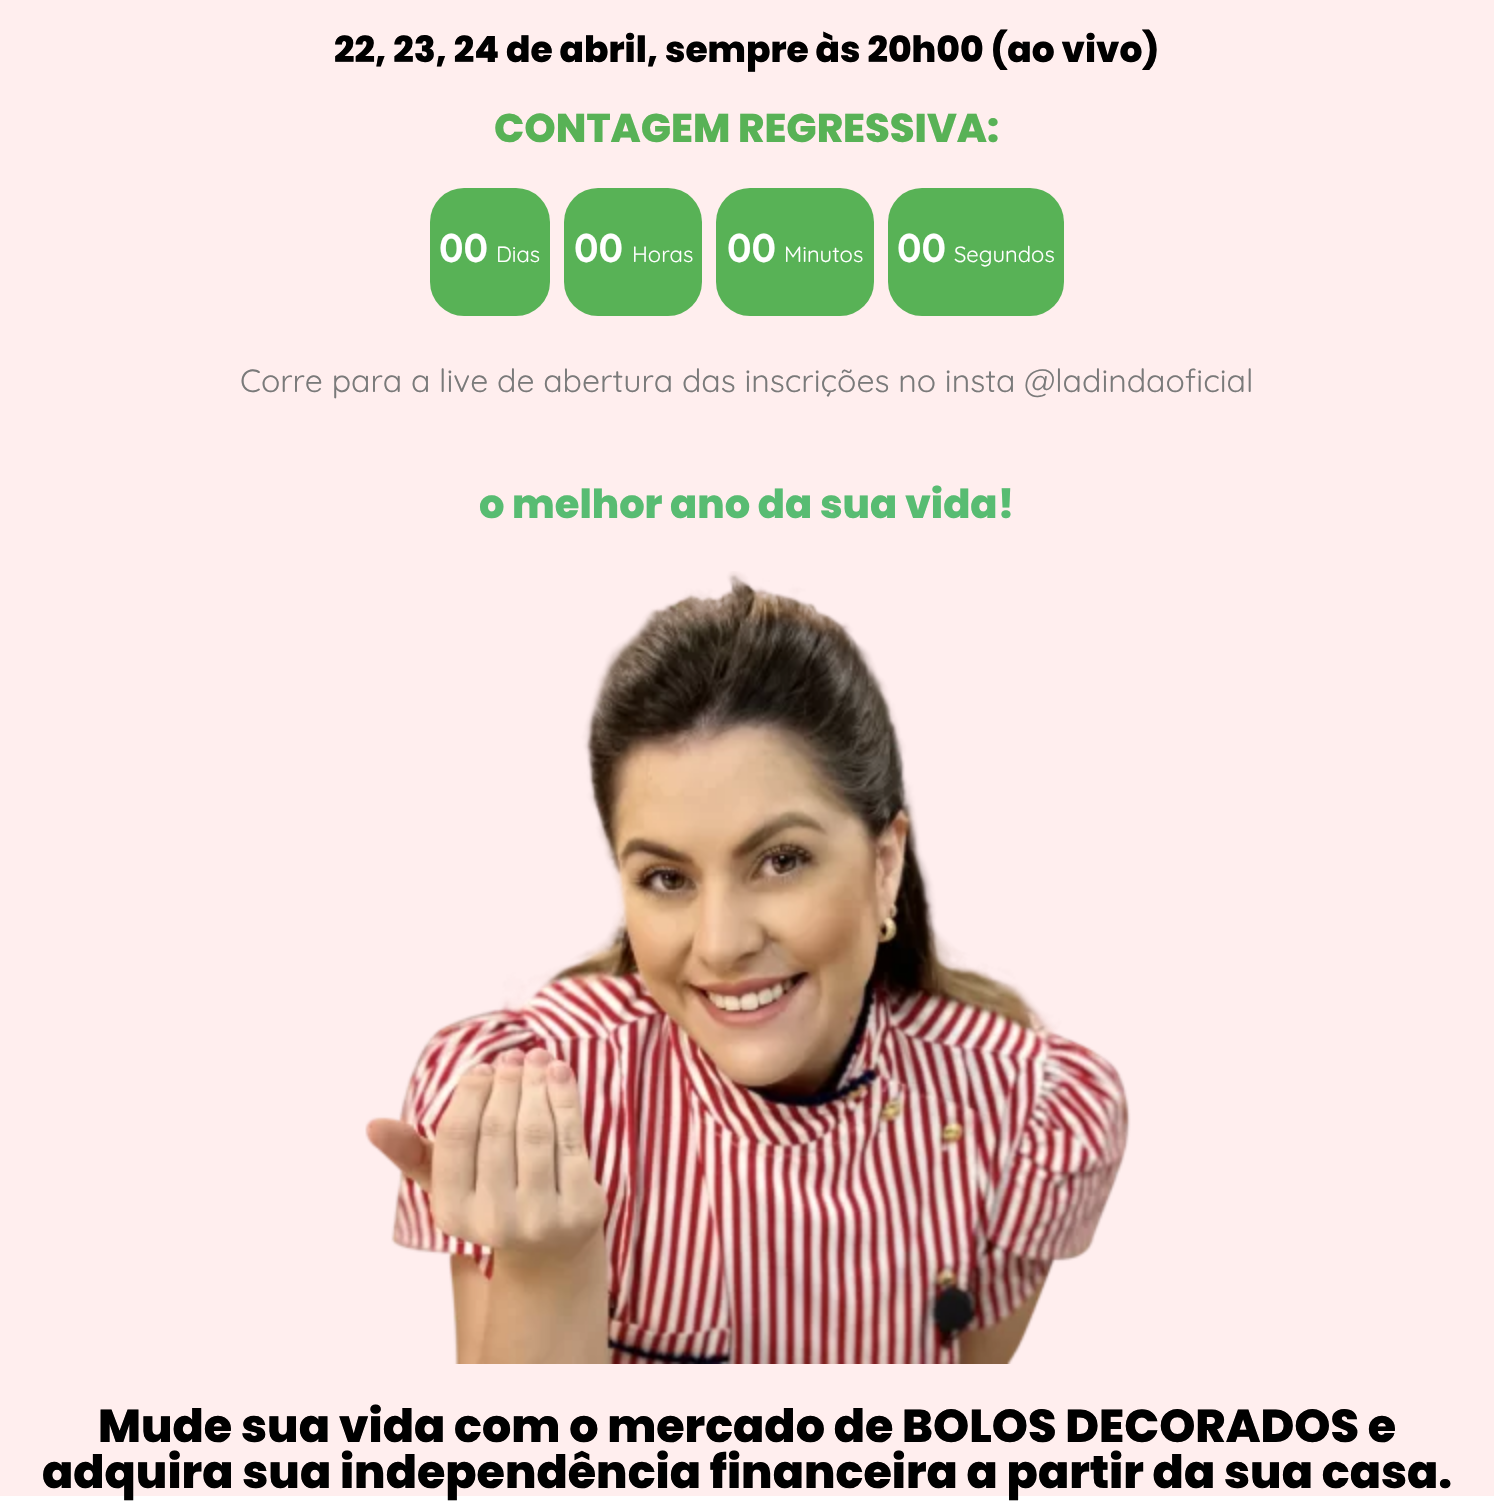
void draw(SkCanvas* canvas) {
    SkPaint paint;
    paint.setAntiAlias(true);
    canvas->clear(0xFFFFFFFF);
    paint.setColor(0xFFFFEEEE);
    canvas->drawRect(SkRect::MakeXYWH(0, 0, 1494, 1496), paint);
    SkFont font1(fontMgr->matchFamilyStyle("Poppins", SkFontStyle(800, SkFontStyle::kNormal_Width, SkFontStyle::kUpright_Slant)), 36);
    font1.setSubpixel(true);
    paint.setColor(0xFF000000);
    canvas->drawString("22, 23, 24 de abril, sempre às 20h00 (ao vivo)", 334, 62, font1, paint);
    SkFont font2(fontMgr->matchFamilyStyle("Poppins", SkFontStyle(800, SkFontStyle::kNormal_Width, SkFontStyle::kUpright_Slant)), 40);
    font2.setSubpixel(true);
    paint.setColor(0xFF58B256);
    canvas->drawString("CONTAGEM REGRESSIVA:", 494, 142, font2, paint);
    canvas->drawRoundRect(SkRect::MakeXYWH(430, 188, 120, 128), 34, 34, paint);
    SkFont font3(fontMgr->matchFamilyStyle("Quicksand", SkFontStyle::Bold()), 40);
    font3.setSubpixel(true);
    paint.setColor(0xFFFFFFFF);
    canvas->drawString("00", 439, 262, font3, paint);
    SkFont font4(fontMgr->matchFamilyStyle("Quicksand", SkFontStyle::Normal()), 22);
    font4.setSubpixel(true);
    canvas->drawString("Dias", 496, 262, font4, paint);
    paint.setColor(0xFF58B256);
    canvas->drawRoundRect(SkRect::MakeXYWH(564, 188, 138, 128), 34, 34, paint);
    paint.setColor(0xFFFFFFFF);
    canvas->drawString("00", 574, 262, font3, paint);
    canvas->drawString("Horas", 632, 262, font4, paint);
    paint.setColor(0xFF58B256);
    canvas->drawRoundRect(SkRect::MakeXYWH(716, 188, 158, 128), 34, 34, paint);
    paint.setColor(0xFFFFFFFF);
    canvas->drawString("00", 727, 262, font3, paint);
    canvas->drawString("Minutos", 784, 262, font4, paint);
    paint.setColor(0xFF58B256);
    canvas->drawRoundRect(SkRect::MakeXYWH(888, 188, 176, 128), 34, 34, paint);
    paint.setColor(0xFFFFFFFF);
    canvas->drawString("00", 897, 262, font3, paint);
    canvas->drawString("Segundos", 954, 262, font4, paint);
    SkFont font5(fontMgr->matchFamilyStyle("Quicksand", SkFontStyle::Normal()), 32);
    font5.setSubpixel(true);
    paint.setColor(0xFF7A7A7A);
    canvas->drawString("Corre para a live de abertura das inscrições no insta @ladindaoficial", 240, 392, font5, paint);
    paint.setColor(0xFF58BC72);
    canvas->drawString("o melhor ano da sua vida!", 479, 518, font2, paint);
    canvas->drawImageRect(SkImages::DeferredFromEncodedData(SkData::MakeFromFileName("img1.png")), SkRect::MakeXYWH(365, 571, 766, 793), SkSamplingOptions());
    SkFont font6(fontMgr->matchFamilyStyle("Poppins", SkFontStyle(800, SkFontStyle::kNormal_Width, SkFontStyle::kUpright_Slant)), 46);
    font6.setSubpixel(true);
    paint.setColor(0xFF000000);
    canvas->drawString("Mude sua vida com o mercado de BOLOS DECORADOS e", 98, 1442, font6, paint);
    canvas->drawString("adquira sua independência financeira a partir da sua casa.", 42, 1488, font6, paint);
}
